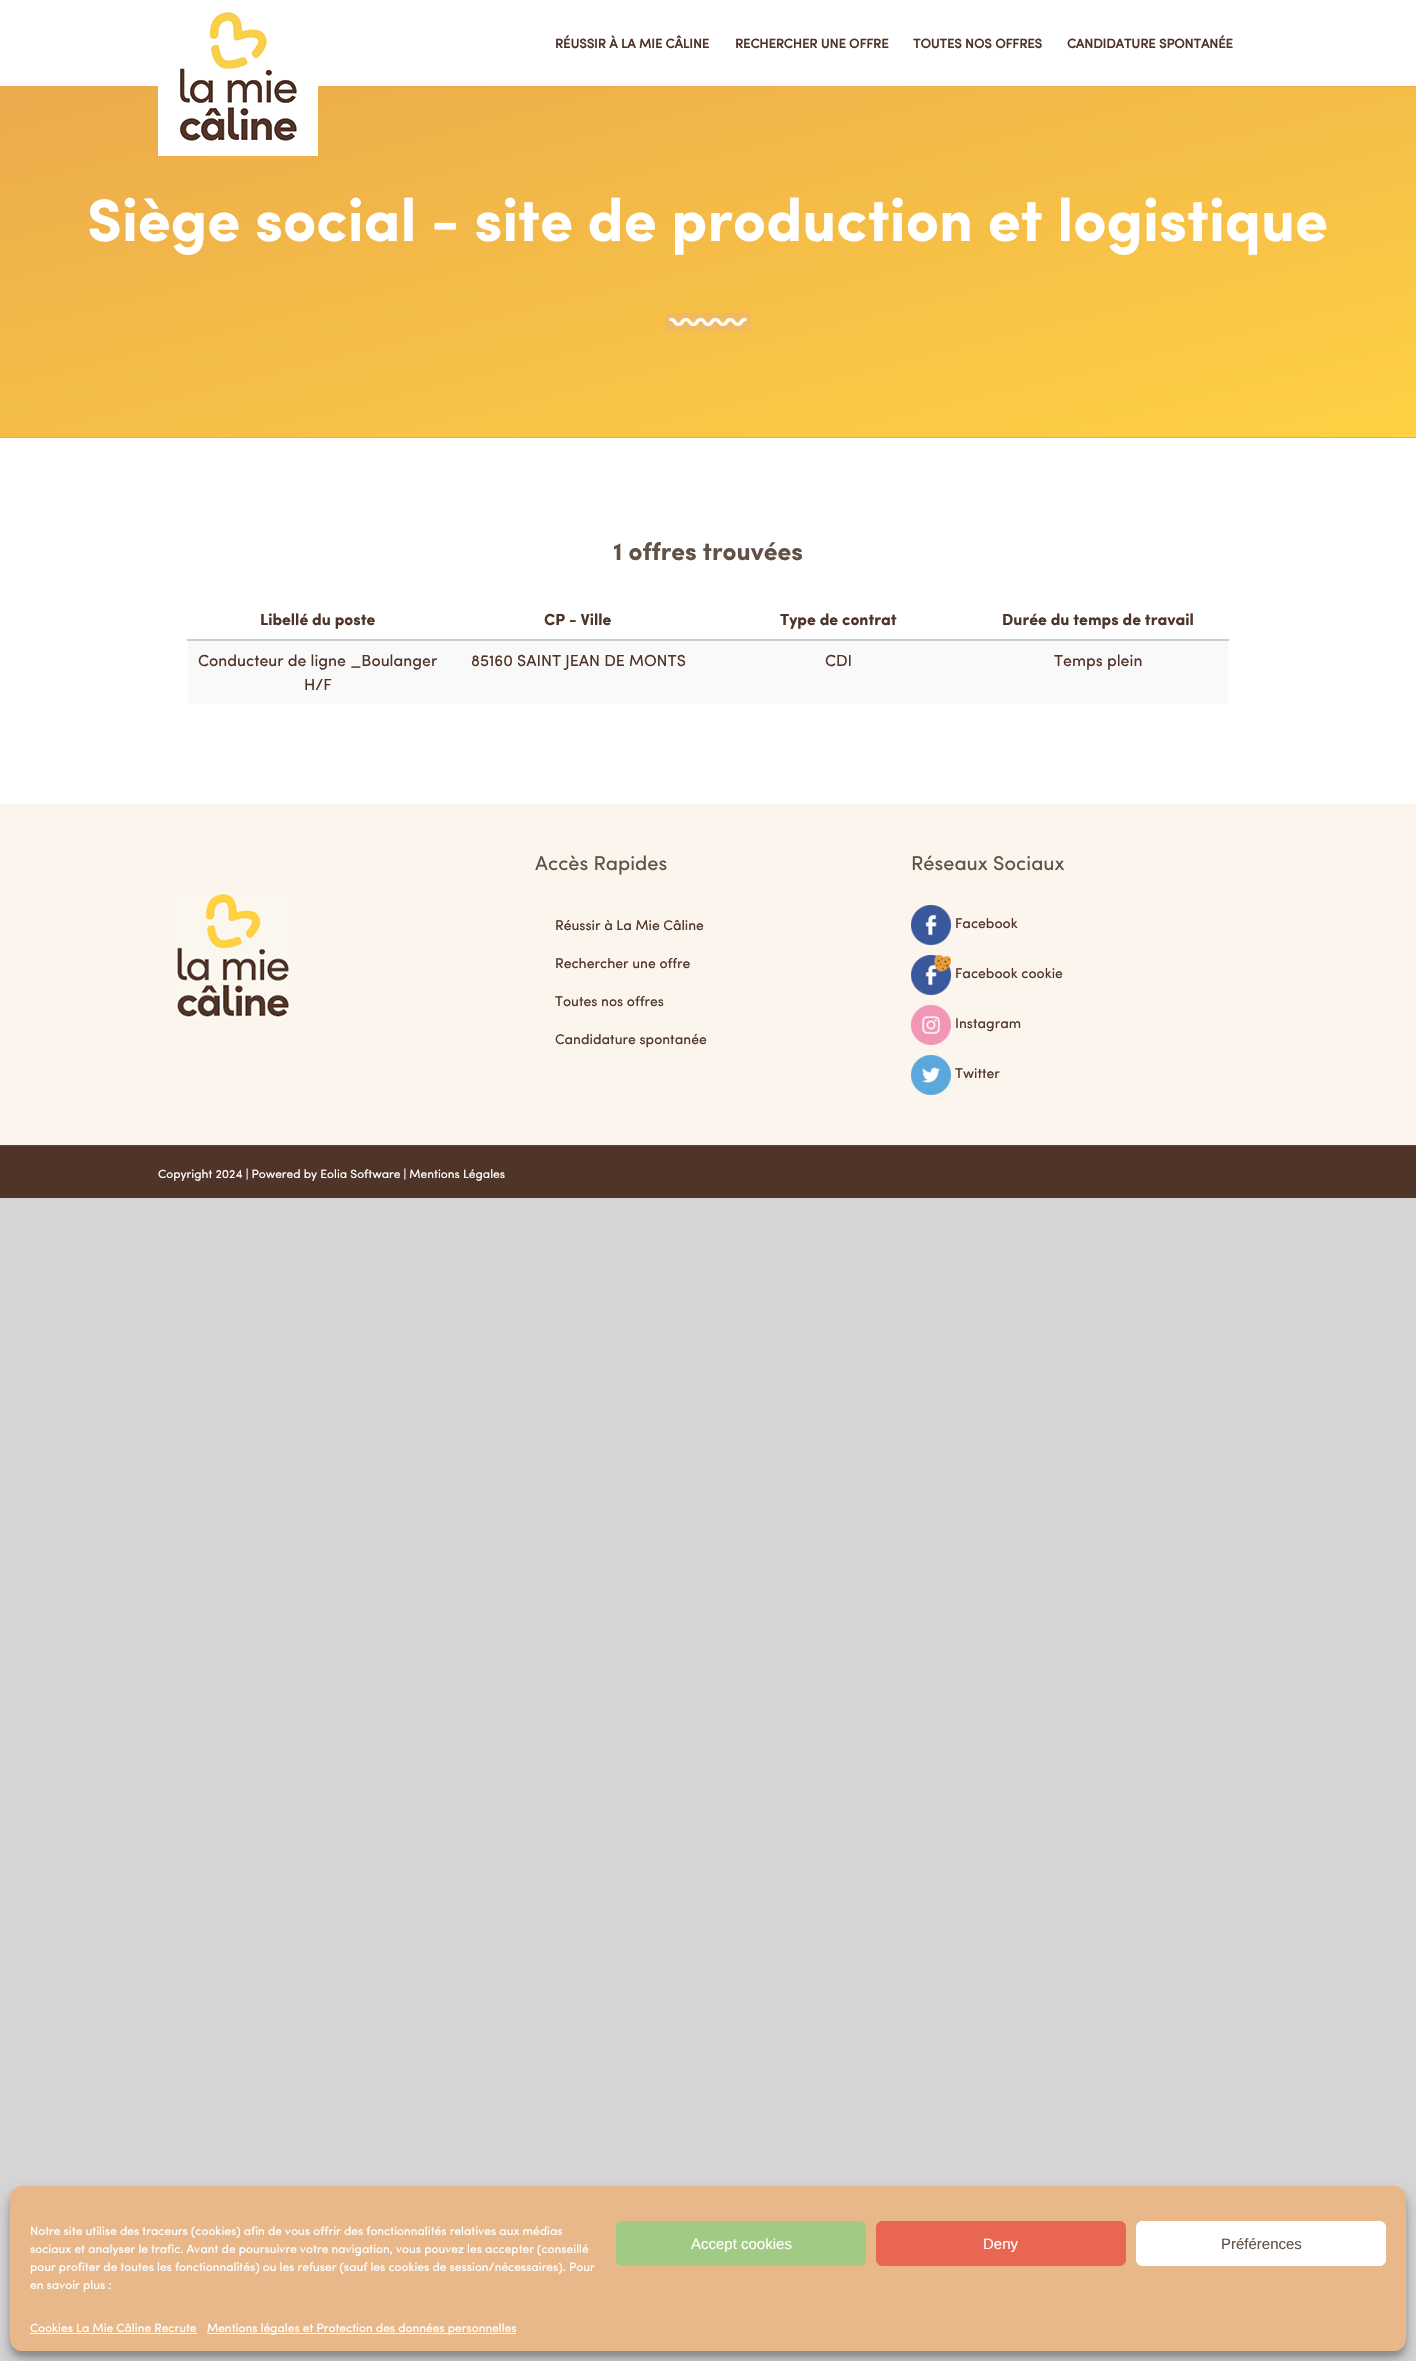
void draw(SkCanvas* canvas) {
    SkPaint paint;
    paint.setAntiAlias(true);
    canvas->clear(0xFFD7D6D6);
    paint.setColor(0xFFFFFFFF);
    canvas->drawRect(SkRect::MakeXYWH(0, 0, 1416, 804), paint);
    {
        const SkColor colors[] = {0xFFEBAA4C, 0xFFFFD143};
        const float stops[] = {0, 1};
        const SkPoint ends[] = {{626, -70}, {790, 594}};
        paint.setShader(SkGradientShader::MakeLinear(ends, colors, stops, 2, SkTileMode::kClamp));
        paint.setAlpha(255);
    }
    canvas->drawRect(SkRect::MakeXYWH(0, 87, 1416, 350), paint);
    paint.setShader(nullptr);
    paint.setColor(0xFFEBAA4C);
    canvas->drawRect(SkRect::MakeXYWH(0, 86, 1416, 1), paint);
    canvas->drawImageRect(SkImages::DeferredFromEncodedData(SkData::MakeFromFileName("img1.png")), SkRect::MakeXYWH(158, 12, 160, 144), SkSamplingOptions());
    SkFont font1(fontMgr->matchFamilyStyle("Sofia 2", SkFontStyle::Bold()), 13);
    font1.setSubpixel(true);
    paint.setColor(0xFF4F3428);
    canvas->drawString("RÉUSSIR À LA MIE CÂLINE", 555, 48, font1, paint);
    canvas->drawString("RECHERCHER UNE OFFRE", 735, 48, font1, paint);
    canvas->drawString("TOUTES NOS OFFRES", 913, 48, font1, paint);
    canvas->drawString("CANDIDATURE SPONTANÉE", 1067, 48, font1, paint);
    paint.setColor(0xFFEBAA4C);
    canvas->drawRect(SkRect::MakeXYWH(0, 437, 1416, 1), paint);
    SkFont font2(fontMgr->matchFamilyStyle("Sofia", SkFontStyle::Bold()), 60);
    font2.setSubpixel(true);
    paint.setColor(0xFFFFFFFF);
    canvas->drawString("Siège social - site de production et logistique", 87, 241, font2, paint);
    canvas->drawImageRect(SkImages::DeferredFromEncodedData(SkData::MakeFromFileName("img2.png")), SkRect::MakeXYWH(666, 313, 85, 18), SkSamplingOptions());
    SkFont font3(fontMgr->matchFamilyStyle("Sofia", SkFontStyle::Bold()), 25);
    font3.setSubpixel(true);
    paint.setColor(0xFF625147);
    canvas->drawString("1 offres trouvées", 613, 560, font3, paint);
    SkFont font4(fontMgr->matchFamilyStyle("Sofia", SkFontStyle::Bold()), 16);
    font4.setSubpixel(true);
    paint.setColor(0xFF4F3428);
    canvas->drawString("Libellé du poste", 260, 625, font4, paint);
    canvas->drawString("CP - Ville", 544, 625, font4, paint);
    canvas->drawString("Type de contrat", 780, 625, font4, paint);
    paint.setColor(0xFFCCCCCC);
    canvas->drawRect(SkRect::MakeXYWH(187, 639, 1042, 2), paint);
    paint.setColor(0xFF4F3428);
    canvas->drawString("Durée du temps de travail", 1002, 625, font4, paint);
    paint.setColor(0xFFF9F9F9);
    canvas->drawRect(SkRect::MakeXYWH(188, 641, 1040, 63), paint);
    SkFont font5(fontMgr->matchFamilyStyle("Sofia", SkFontStyle::Normal()), 16);
    font5.setSubpixel(true);
    paint.setColor(0xFF4F3428);
    canvas->drawString("Conducteur de ligne _Boulanger", 198, 666, font5, paint);
    canvas->drawString("H/F", 304, 690, font5, paint);
    canvas->drawString("85160 SAINT JEAN DE MONTS", 471, 666, font5, paint);
    canvas->drawString("CDI", 825, 666, font5, paint);
    canvas->drawString("Temps plein", 1054, 666, font5, paint);
    paint.setColor(0xFFFBF5ED);
    canvas->drawRect(SkRect::MakeXYWH(0, 804, 1416, 341), paint);
    canvas->drawImageRect(SkImages::DeferredFromEncodedData(SkData::MakeFromFileName("img3.png")), SkRect::MakeXYWH(176, 892, 114, 126), SkSamplingOptions());
    SkFont font6(fontMgr->matchFamilyStyle("Sofia", SkFontStyle::Normal()), 20);
    font6.setSubpixel(true);
    paint.setColor(0xFF625147);
    canvas->drawString("Accès Rapides", 535, 870, font6, paint);
    SkFont font7(fontMgr->matchFamilyStyle("Sofia", SkFontStyle::Normal()), 14);
    font7.setSubpixel(true);
    paint.setColor(0xFF4F3428);
    canvas->drawString("Réussir à La Mie Câline", 555, 930, font7, paint);
    canvas->drawString("Rechercher une offre", 555, 968, font7, paint);
    canvas->drawString("Toutes nos offres", 555, 1006, font7, paint);
    canvas->drawString("Candidature spontanée", 555, 1044, font7, paint);
    paint.setColor(0xFF625147);
    canvas->drawString("Réseaux Sociaux", 911, 870, font6, paint);
    canvas->drawImageRect(SkImages::DeferredFromEncodedData(SkData::MakeFromFileName("img4.png")), SkRect::MakeXYWH(911, 905, 40, 40), SkSamplingOptions());
    paint.setColor(0xFF4F3428);
    canvas->drawString("Facebook", 955, 928, font7, paint);
    canvas->drawImageRect(SkImages::DeferredFromEncodedData(SkData::MakeFromFileName("img5.png")), SkRect::MakeXYWH(911, 955, 40, 40), SkSamplingOptions());
    canvas->drawString("Facebook cookie", 955, 978, font7, paint);
    canvas->drawImageRect(SkImages::DeferredFromEncodedData(SkData::MakeFromFileName("img6.png")), SkRect::MakeXYWH(911, 1005, 40, 40), SkSamplingOptions());
    canvas->drawString("Instagram", 955, 1028, font7, paint);
    canvas->drawImageRect(SkImages::DeferredFromEncodedData(SkData::MakeFromFileName("img7.png")), SkRect::MakeXYWH(911, 1055, 40, 40), SkSamplingOptions());
    canvas->drawString("Twitter", 955, 1078, font7, paint);
    canvas->drawRect(SkRect::MakeXYWH(0, 1146, 1416, 52), paint);
    paint.setColor(0xFF4B4C4D);
    canvas->drawRect(SkRect::MakeXYWH(0, 1145, 1416, 1), paint);
    SkFont font8(fontMgr->matchFamilyStyle("Sofia", SkFontStyle::Normal()), 12);
    font8.setSubpixel(true);
    paint.setColor(0xFFFFFFFF);
    canvas->drawString("Copyright 2024 | Powered by Eolia Software | Mentions Légales", 158, 1178, font8, paint);
    paint.setColor(0x3B000000);
    paint.setMaskFilter(SkMaskFilter::MakeBlur(kNormal_SkBlurStyle, 3));
    canvas->drawRoundRect(SkRect::MakeXYWH(10, 2192, 1396, 165), 12, 12, paint);
    paint.setMaskFilter(nullptr);
    paint.setColor(0x30000000);
    paint.setMaskFilter(SkMaskFilter::MakeBlur(kNormal_SkBlurStyle, 10));
    canvas->drawRoundRect(SkRect::MakeXYWH(10, 2196, 1396, 165), 12, 12, paint);
    paint.setMaskFilter(nullptr);
    paint.setColor(0xFFE8B88A);
    canvas->drawRoundRect(SkRect::MakeXYWH(10, 2186, 1396, 165), 12, 12, paint);
    paint.setColor(0xFFFFFFFF);
    canvas->drawString("Notre site utilise des traceurs (cookies) afin de vous offrir des fonctionnalités relatives aux médias", 30, 2235, font8, paint);
    canvas->drawString("sociaux et analyser le trafic. Avant de poursuivre votre navigation, vous pouvez les accepter (conseillé", 30, 2253, font8, paint);
    canvas->drawString("pour profiter de toutes les fonctionnalités) ou les refuser (sauf les cookies de session/nécessaires). Pour", 30, 2271, font8, paint);
    canvas->drawString("en savoir plus :", 30, 2289, font8, paint);
    paint.setColor(0xFFA1CB84);
    canvas->drawRoundRect(SkRect::MakeXYWH(616.5f, 2221.5f, 249, 44), 5.5f, 5.5f, paint);
    paint.setStyle(SkPaint::kStroke_Style);
    paint.setStrokeWidth(1);
    canvas->drawRoundRect(SkRect::MakeXYWH(616.5f, 2221.5f, 249, 44), 5.5f, 5.5f, paint);
    SkFont font9(fontMgr->matchFamilyStyle("Liberation Sans", SkFontStyle::Normal()), 15);
    font9.setSubpixel(true);
    paint.setStyle(SkPaint::kFill_Style);
    paint.setColor(0xFFFFFFFF);
    canvas->drawString("Accept cookies", 691, 2249, font9, paint);
    paint.setColor(0xFFE96652);
    canvas->drawRoundRect(SkRect::MakeXYWH(876.5f, 2221.5f, 249, 44), 5.5f, 5.5f, paint);
    paint.setStyle(SkPaint::kStroke_Style);
    canvas->drawRoundRect(SkRect::MakeXYWH(876.5f, 2221.5f, 249, 44), 5.5f, 5.5f, paint);
    paint.setStyle(SkPaint::kFill_Style);
    paint.setColor(0xFFFFFFFF);
    canvas->drawString("Deny", 983, 2249, font9, paint);
    canvas->drawRoundRect(SkRect::MakeXYWH(1136.5f, 2221.5f, 249, 44), 5.5f, 5.5f, paint);
    paint.setStyle(SkPaint::kStroke_Style);
    canvas->drawRoundRect(SkRect::MakeXYWH(1136.5f, 2221.5f, 249, 44), 5.5f, 5.5f, paint);
    paint.setStyle(SkPaint::kFill_Style);
    paint.setColor(0xFF625147);
    canvas->drawString("Préférences", 1221, 2249, font9, paint);
    paint.setColor(0xFFFFFFFF);
    canvas->drawString("Cookies La Mie Câline Recrute", 30, 2332, font8, paint);
    canvas->drawRect(SkRect::MakeXYWH(30, 2333, 167, 1), paint);
    canvas->drawRect(SkRect::MakeXYWH(207, 2333, 309, 1), paint);
    canvas->drawString("Mentions légales et Protection des données personnelles", 207, 2332, font8, paint);
}
